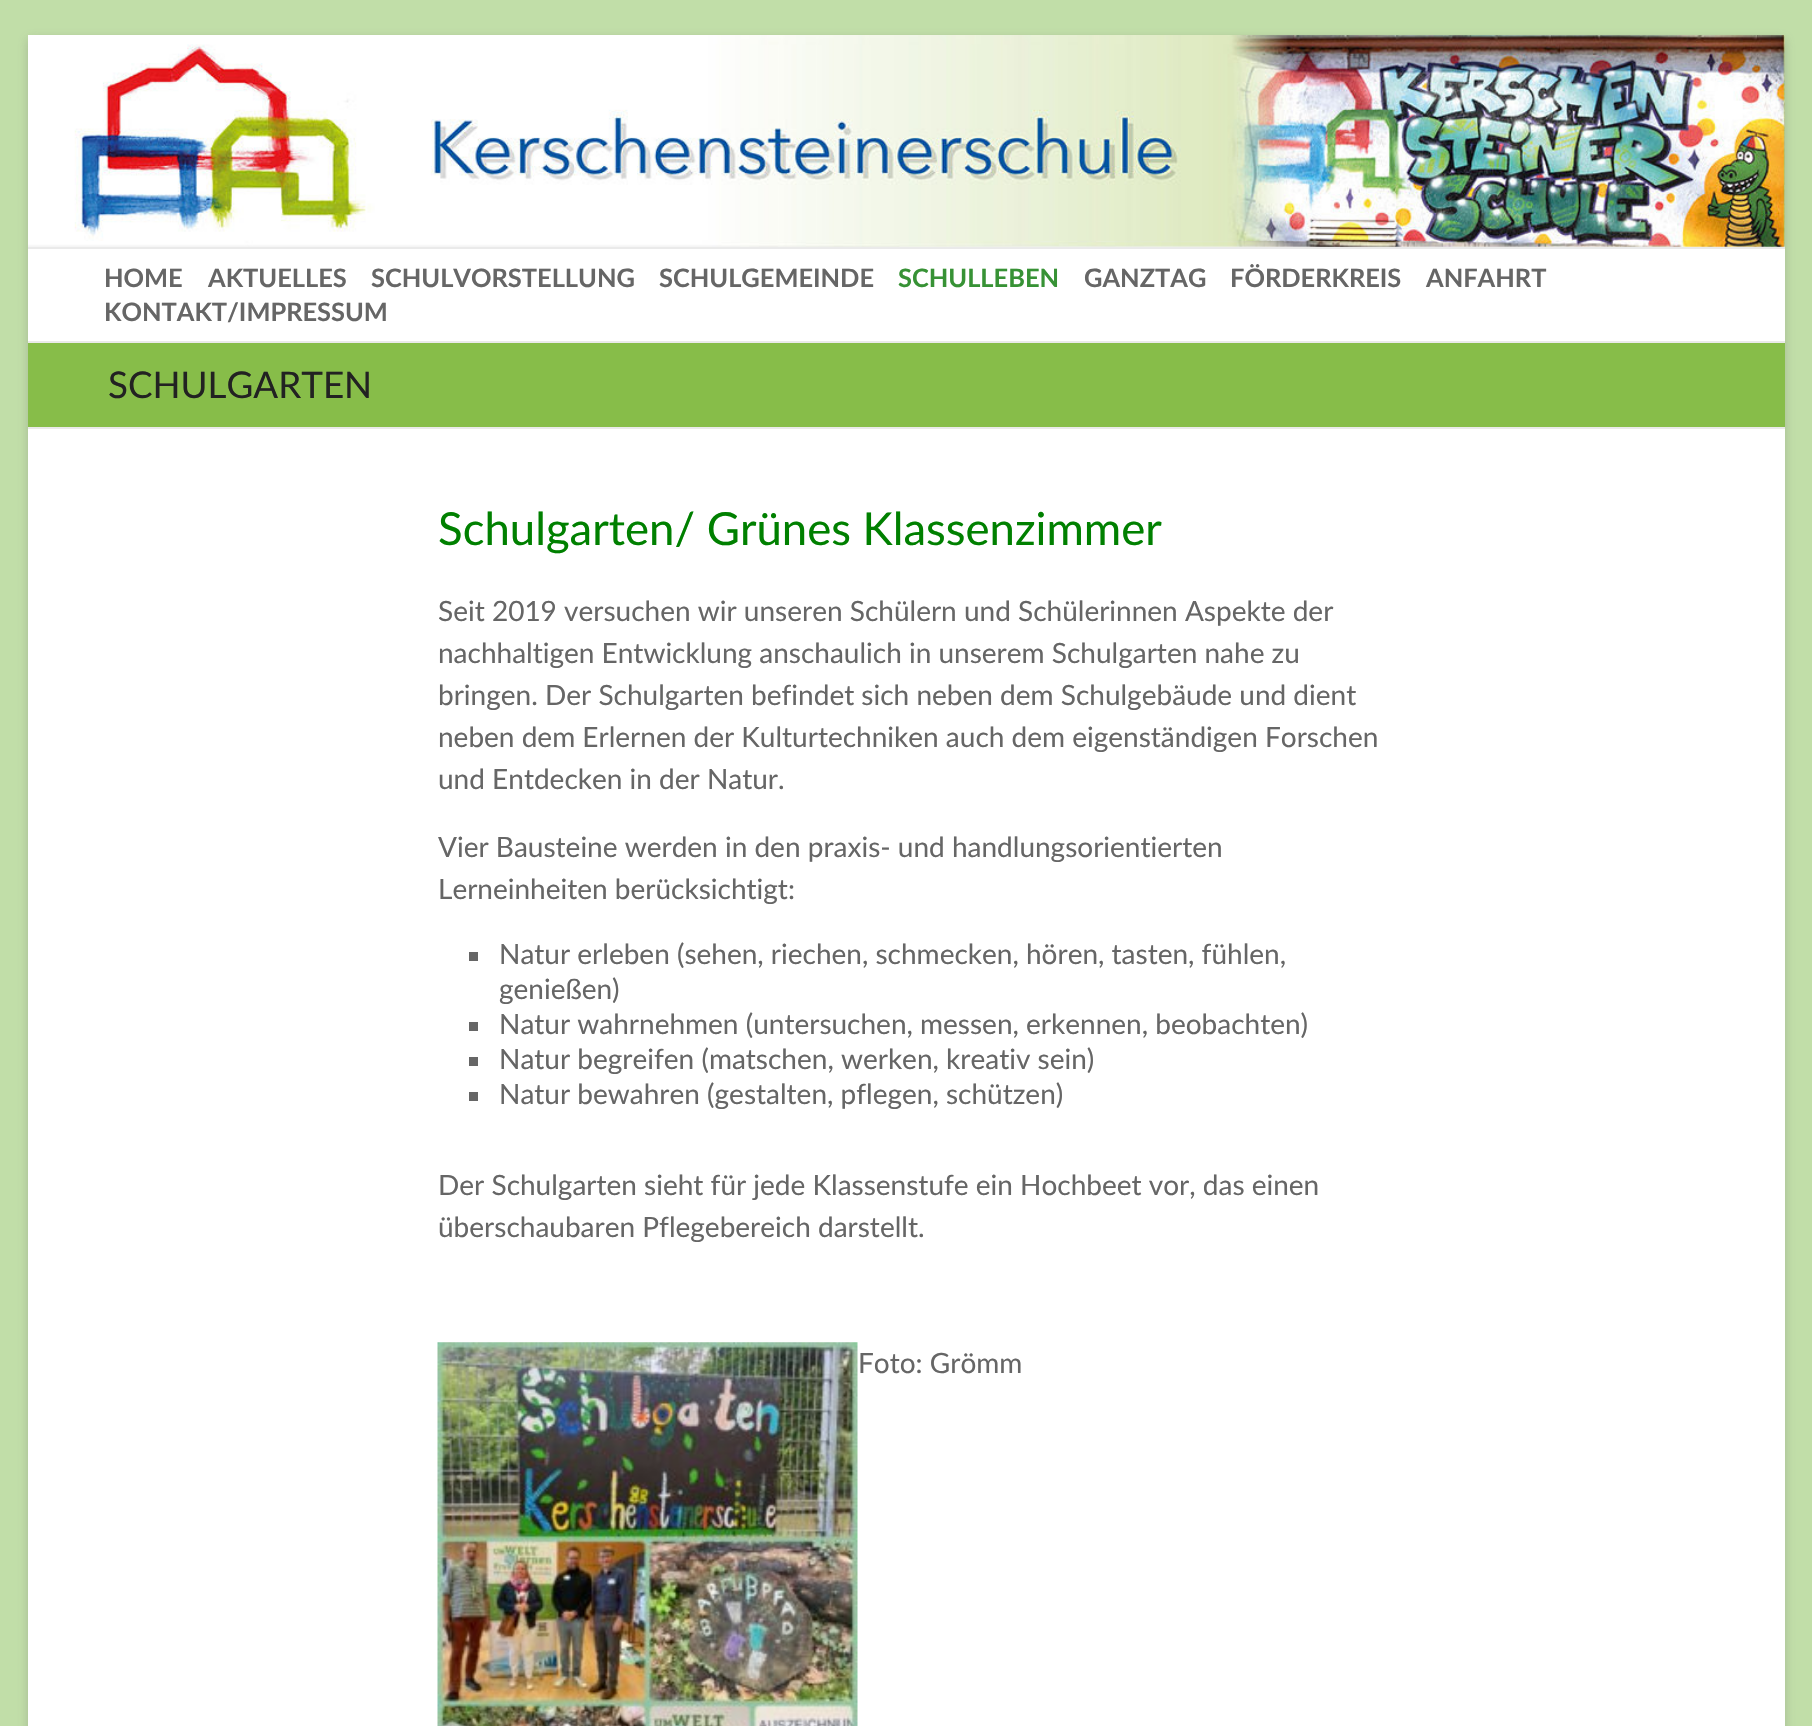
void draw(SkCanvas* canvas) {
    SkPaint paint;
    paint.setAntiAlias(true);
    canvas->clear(0xFFC1DEA8);
    paint.setColor(0x4D646464);
    paint.setMaskFilter(SkMaskFilter::MakeBlur(kNormal_SkBlurStyle, 5));
    canvas->drawRect(SkRect::MakeXYWH(28, 39, 1757, 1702), paint);
    paint.setMaskFilter(nullptr);
    paint.setColor(0xFFFFFFFF);
    canvas->drawRect(SkRect::MakeXYWH(28, 246, 1757, 1480), paint);
    canvas->drawImageRect(SkImages::DeferredFromEncodedData(SkData::MakeFromFileName("img1.png")), SkRect::MakeXYWH(28, 35, 1757, 212), SkSamplingOptions());
    paint.setColor(0xFFEAEAEA);
    canvas->drawRect(SkRect::MakeXYWH(28, 247, 1757, 2), paint);
    canvas->drawRect(SkRect::MakeXYWH(28, 341, 1757, 2), paint);
    SkFont font1(fontMgr->matchFamilyStyle("Lato", SkFontStyle::Bold()), 25.4f);
    font1.setSubpixel(true);
    paint.setColor(0xFF666666);
    canvas->drawString("HOME", 104, 287, font1, paint);
    canvas->drawString("AKTUELLES", 208, 287, font1, paint);
    canvas->drawString("SCHULVORSTELLUNG", 371, 287, font1, paint);
    canvas->drawString("SCHULGEMEINDE", 659, 287, font1, paint);
    paint.setColor(0xFF379235);
    canvas->drawString("SCHULLEBEN", 898, 287, font1, paint);
    paint.setColor(0xFF666666);
    canvas->drawString("GANZTAG", 1084, 287, font1, paint);
    canvas->drawString("FÖRDERKREIS", 1230, 287, font1, paint);
    canvas->drawString("ANFAHRT", 1426, 287, font1, paint);
    canvas->drawString("KONTAKT/IMPRESSUM", 104, 321, font1, paint);
    paint.setColor(0xFF87BD49);
    canvas->drawRect(SkRect::MakeXYWH(28, 343, 1757, 84), paint);
    paint.setColor(0xFFEAEAEA);
    canvas->drawRect(SkRect::MakeXYWH(28, 427, 1757, 2), paint);
    SkFont font2(fontMgr->matchFamilyStyle("Lato", SkFontStyle::Normal()), 36.75f);
    font2.setSubpixel(true);
    paint.setColor(0xFF222222);
    canvas->drawString("SCHULGARTEN", 108, 398, font2, paint);
    SkFont font3(fontMgr->matchFamilyStyle("Lato", SkFontStyle::Normal()), 45.5f);
    font3.setSubpixel(true);
    paint.setColor(0xFF008000);
    canvas->drawString("Schulgarten/ Grünes Klassenzimmer", 438, 545, font3, paint);
    SkFont font4(fontMgr->matchFamilyStyle("Lato", SkFontStyle::Normal()), 28);
    font4.setSubpixel(true);
    paint.setColor(0xFF666666);
    canvas->drawString("Seit 2019 versuchen wir unseren Schülern und Schülerinnen Aspekte der", 438, 621, font4, paint);
    canvas->drawString("nachhaltigen Entwicklung anschaulich in unserem Schulgarten nahe zu", 438, 663, font4, paint);
    canvas->drawString("bringen. Der Schulgarten befindet sich neben dem Schulgebäude und dient", 438, 705, font4, paint);
    canvas->drawString("neben dem Erlernen der Kulturtechniken auch dem eigenständigen Forschen", 438, 747, font4, paint);
    canvas->drawString("und Entdecken in der Natur.", 438, 789, font4, paint);
    canvas->drawString("Vier Bausteine werden in den praxis- und handlungsorientierten", 438, 857, font4, paint);
    canvas->drawString("Lerneinheiten berücksichtigt:", 438, 899, font4, paint);
    canvas->drawRect(SkRect::MakeXYWH(469, 952, 9, 9), paint);
    canvas->drawString("Natur erleben (sehen, riechen, schmecken, hören, tasten, fühlen,", 499, 964, font4, paint);
    canvas->drawString("genießen)", 499, 999, font4, paint);
    canvas->drawRect(SkRect::MakeXYWH(469, 1022, 9, 9), paint);
    canvas->drawString("Natur wahrnehmen (untersuchen, messen, erkennen, beobachten)", 499, 1034, font4, paint);
    canvas->drawRect(SkRect::MakeXYWH(469, 1057, 9, 9), paint);
    canvas->drawString("Natur begreifen (matschen, werken, kreativ sein)", 499, 1069, font4, paint);
    canvas->drawRect(SkRect::MakeXYWH(469, 1092, 9, 9), paint);
    canvas->drawString("Natur bewahren (gestalten, pflegen, schützen)", 499, 1104, font4, paint);
    canvas->drawString("Der Schulgarten sieht für jede Klassenstufe ein Hochbeet vor, das einen", 438, 1195, font4, paint);
    canvas->drawString("überschaubaren Pflegebereich darstellt.", 438, 1237, font4, paint);
    canvas->drawImageRect(SkImages::DeferredFromEncodedData(SkData::MakeFromFileName("img2.png")), SkRect::MakeXYWH(437, 1342, 421, 384), SkSamplingOptions());
    canvas->drawString("Foto: Grömm", 858, 1373, font4, paint);
}
